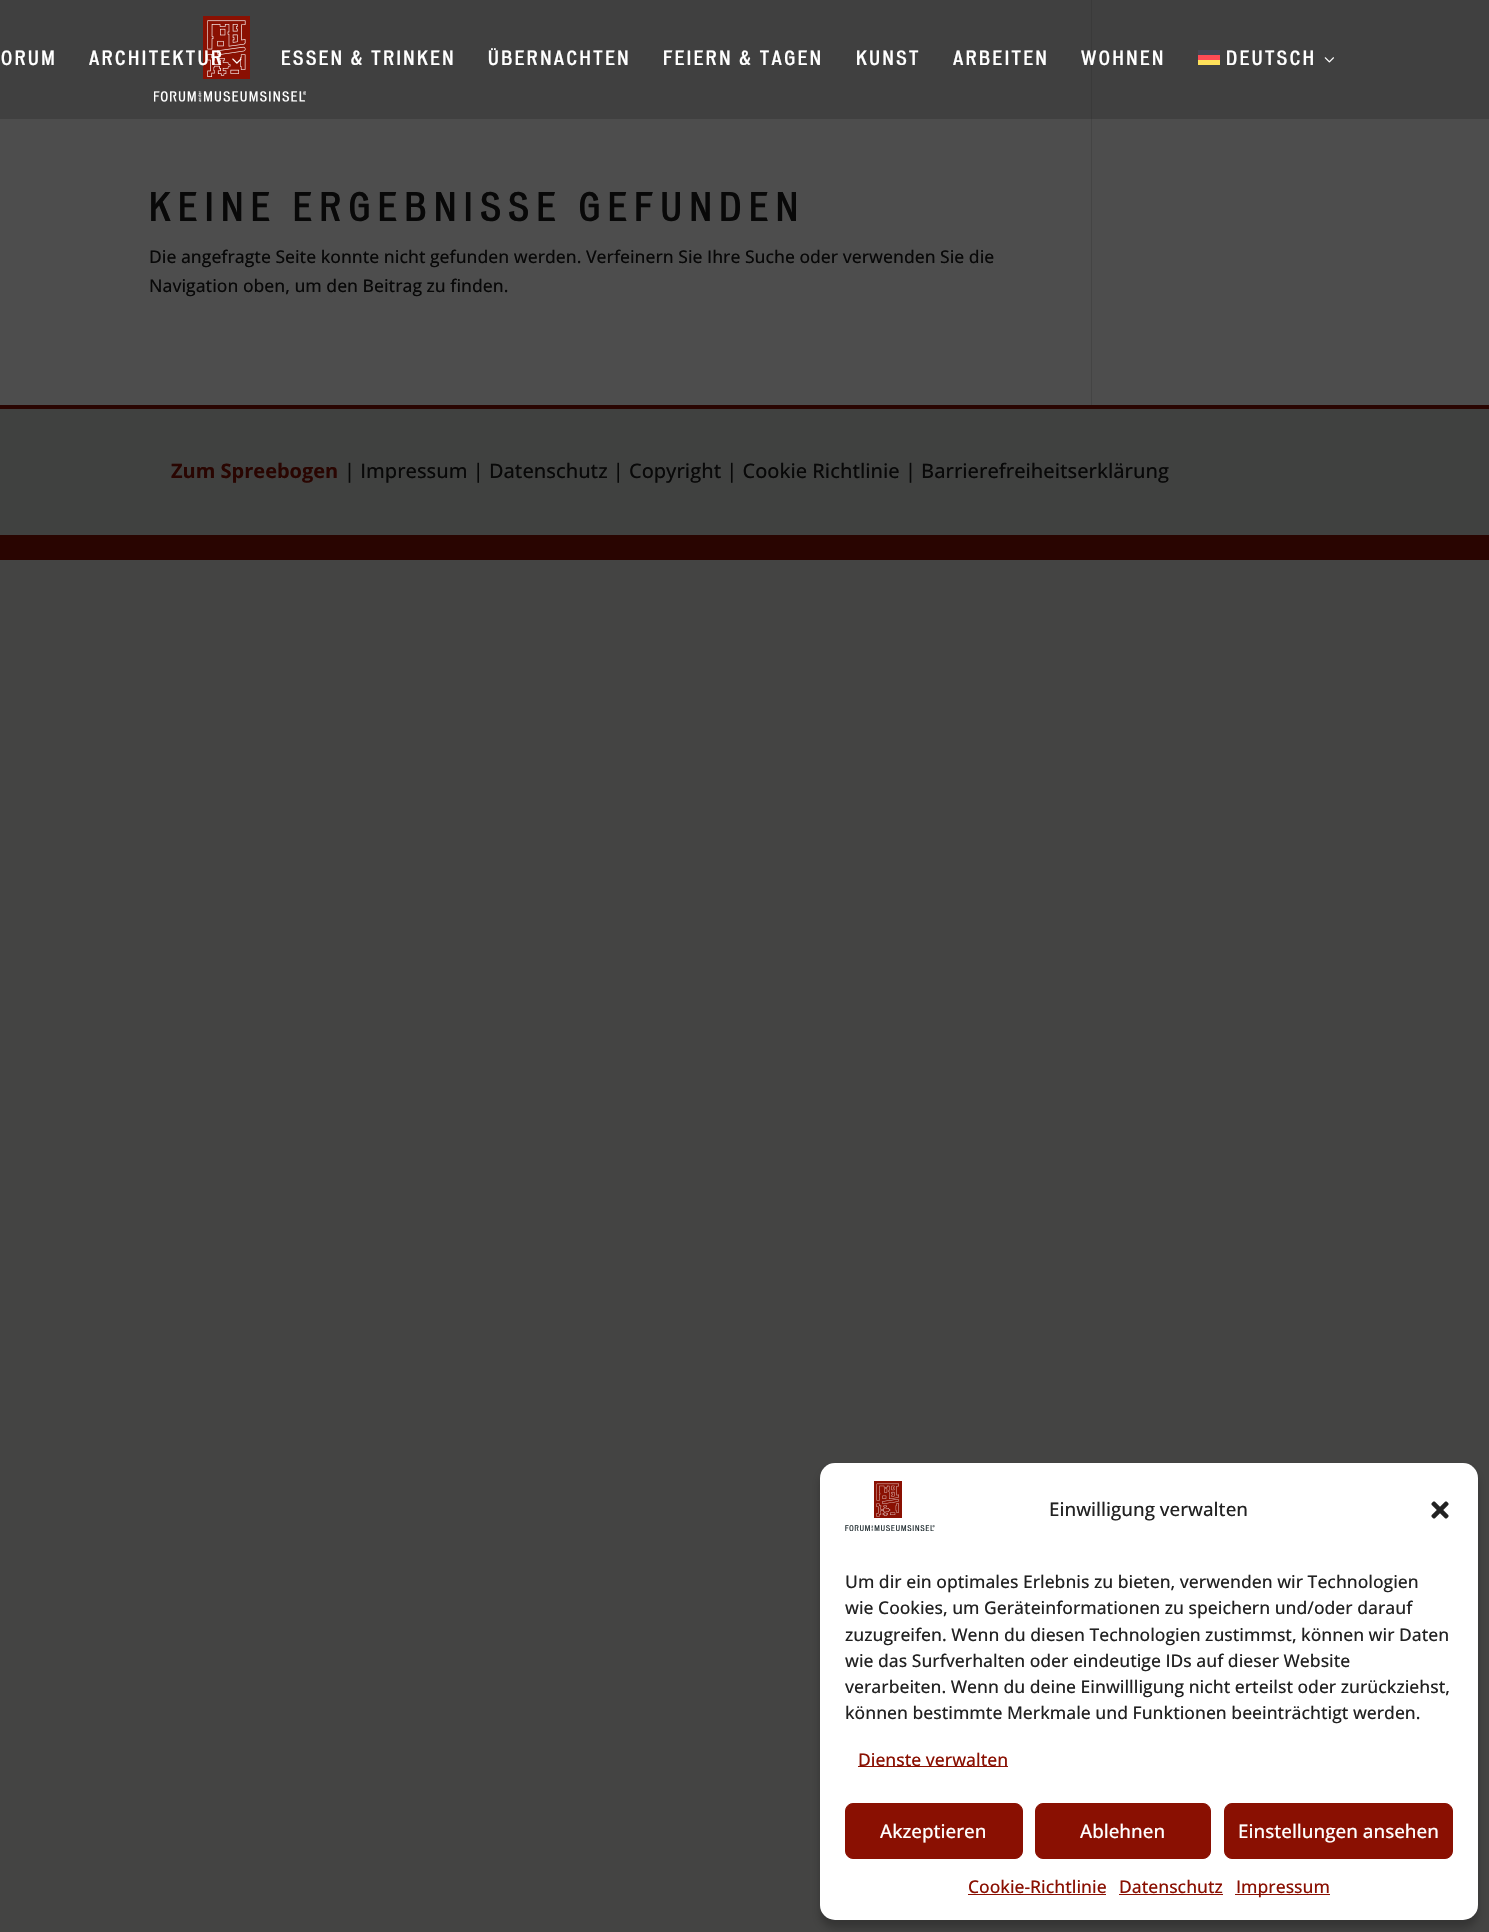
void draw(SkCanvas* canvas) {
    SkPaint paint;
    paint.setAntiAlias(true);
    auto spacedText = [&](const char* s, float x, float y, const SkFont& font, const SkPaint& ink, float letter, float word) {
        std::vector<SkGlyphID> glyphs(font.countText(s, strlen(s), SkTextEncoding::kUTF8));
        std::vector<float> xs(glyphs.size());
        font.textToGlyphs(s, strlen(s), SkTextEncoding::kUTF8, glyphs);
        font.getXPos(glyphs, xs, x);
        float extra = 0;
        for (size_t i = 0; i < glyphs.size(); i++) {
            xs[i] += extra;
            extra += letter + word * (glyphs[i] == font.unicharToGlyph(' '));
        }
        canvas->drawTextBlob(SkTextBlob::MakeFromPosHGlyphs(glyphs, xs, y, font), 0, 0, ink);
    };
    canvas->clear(0xFF444443);
    paint.setColor(0xFF404040);
    canvas->drawRect(SkRect::MakeXYWH(0, 0, 1489, 119), paint);
    canvas->drawImageRect(SkImages::DeferredFromEncodedData(SkData::MakeFromFileName("img1.png")), SkRect::MakeXYWH(154, 16, 152, 86), SkSamplingOptions());
    SkFont font1(fontMgr->matchFamilyStyle("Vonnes", SkFontStyle(500, SkFontStyle::kNormal_Width, SkFontStyle::kUpright_Slant)), 18.75f);
    font1.setSubpixel(true);
    paint.setColor(0xFFFFFFFF);
    spacedText("ORUM", 1, 65, font1, paint, 2.5f, 0);
    spacedText("ARCHITEKTUR", 89, 65, font1, paint, 2.5f, 0);
    canvas->drawImageRect(SkImages::DeferredFromEncodedData(SkData::MakeFromFileName("img2.png")), SkRect::MakeXYWH(232, 58, 10, 6), SkSamplingOptions());
    spacedText("ESSEN & TRINKEN", 281, 65, font1, paint, 2.5f, 0);
    spacedText("ÜBERNACHTEN", 488, 65, font1, paint, 2.5f, 0);
    spacedText("FEIERN & TAGEN", 663, 65, font1, paint, 2.5f, 0);
    spacedText("KUNST", 856, 65, font1, paint, 2.5f, 0);
    spacedText("ARBEITEN", 953, 65, font1, paint, 2.5f, 0);
    paint.setColor(0xFF3A3A3A);
    canvas->drawRect(SkRect::MakeXYWH(1091, 0, 1, 119), paint);
    paint.setColor(0xFFFFFFFF);
    spacedText("WOHNEN", 1081, 65, font1, paint, 2.5f, 0);
    paint.setColor(0xFF464655);
    canvas->drawRect(SkRect::MakeXYWH(1198, 50, 22, 5), paint);
    paint.setColor(0xFFFFFFFF);
    spacedText("DEUTSCH", 1226, 65, font1, paint, 2.5f, 0);
    paint.setColor(0xFFFF4B55);
    canvas->drawRect(SkRect::MakeXYWH(1198, 55, 22, 5), paint);
    canvas->drawImageRect(SkImages::DeferredFromEncodedData(SkData::MakeFromFileName("img3.png")), SkRect::MakeXYWH(1324, 57, 10, 6), SkSamplingOptions());
    paint.setColor(0xFFFFE15A);
    canvas->drawRect(SkRect::MakeXYWH(1198, 60, 22, 5), paint);
    paint.setColor(0xFF4D4D4D);
    canvas->drawRect(SkRect::MakeXYWH(0, 119, 1489, 286), paint);
    SkFont font2(fontMgr->matchFamilyStyle("Vonnes", SkFontStyle(500, SkFontStyle::kNormal_Width, SkFontStyle::kUpright_Slant)), 37.5f);
    font2.setSubpixel(true);
    paint.setColor(0xFF080808);
    spacedText("KEINE ERGEBNISSE GEFUNDEN", 149, 221, font2, paint, 7.5f, 0);
    SkFont font3(fontMgr->matchFamilyStyle("Open Sans", SkFontStyle(500, SkFontStyle::kNormal_Width, SkFontStyle::kUpright_Slant)), 17.5f);
    font3.setSubpixel(true);
    canvas->drawString("Die angefragte Seite konnte nicht gefunden werden. Verfeinern Sie Ihre Suche oder verwenden Sie die", 149, 263, font3, paint);
    canvas->drawString("Navigation oben, um den Beitrag zu finden.", 149, 292, font3, paint);
    paint.setColor(0xFF444444);
    canvas->drawRect(SkRect::MakeXYWH(1091, 119, 1, 286), paint);
    paint.setColor(0xFF404140);
    canvas->drawRect(SkRect::MakeXYWH(0, 409, 1489, 126), paint);
    paint.setColor(0xFF290501);
    canvas->drawRect(SkRect::MakeXYWH(0, 405, 1489, 4), paint);
    canvas->drawRect(SkRect::MakeXYWH(0, 535, 1489, 25), paint);
    SkFont font4(fontMgr->matchFamilyStyle("Open Sans", SkFontStyle::Bold()), 20);
    font4.setSubpixel(true);
    canvas->drawString("Zum Spreebogen", 171, 478, font4, paint);
    SkFont font5(fontMgr->matchFamilyStyle("Open Sans", SkFontStyle(500, SkFontStyle::kNormal_Width, SkFontStyle::kUpright_Slant)), 20);
    font5.setSubpixel(true);
    paint.setColor(0xFF080808);
    canvas->drawString("| Impressum | Datenschutz | Copyright | Cookie Richtlinie | Barrierefreiheitserklärung", 344, 478, font5, paint);
    paint.setColor(0x3B000000);
    paint.setMaskFilter(SkMaskFilter::MakeBlur(kNormal_SkBlurStyle, 4));
    canvas->drawRoundRect(SkRect::MakeXYWH(820, 1470, 658, 458), 15, 15, paint);
    paint.setMaskFilter(nullptr);
    paint.setColor(0xFFFFFFFF);
    canvas->drawRoundRect(SkRect::MakeXYWH(820, 1463, 658, 457), 15, 15, paint);
    canvas->drawImageRect(SkImages::DeferredFromEncodedData(SkData::MakeFromFileName("img4.png")), SkRect::MakeXYWH(845, 1481, 90, 50), SkSamplingOptions());
    SkFont font6(fontMgr->matchFamilyStyle("Open Sans", SkFontStyle(500, SkFontStyle::kNormal_Width, SkFontStyle::kUpright_Slant)), 18.75f);
    font6.setSubpixel(true);
    paint.setColor(0xFF222222);
    canvas->drawString("Einwilligung verwalten", 1049, 1516, font6, paint);
    canvas->drawImageRect(SkImages::DeferredFromEncodedData(SkData::MakeFromFileName("img5.png")), SkRect::MakeXYWH(1431, 1501, 18, 18), SkSamplingOptions());
    canvas->drawString("Um dir ein optimales Erlebnis zu bieten, verwenden wir Technologien", 845, 1588, font3, paint);
    canvas->drawString("wie Cookies, um Geräteinformationen zu speichern und/oder darauf", 845, 1614, font3, paint);
    canvas->drawString("zuzugreifen. Wenn du diesen Technologien zustimmst, können wir Daten", 845, 1641, font3, paint);
    canvas->drawString("wie das Surfverhalten oder eindeutige IDs auf dieser Website", 845, 1667, font3, paint);
    canvas->drawString("verarbeiten. Wenn du deine Einwillligung nicht erteilst oder zurückziehst,", 845, 1693, font3, paint);
    canvas->drawString("können bestimmte Merkmale und Funktionen beeinträchtigt werden.", 845, 1719, font3, paint);
    paint.setColor(0xFF8A1002);
    canvas->drawRect(SkRect::MakeXYWH(858, 1766, 150, 1), paint);
    canvas->drawString("Dienste verwalten", 858, 1766, font3, paint);
    canvas->drawRoundRect(SkRect::MakeXYWH(845.5f, 1803.5f, 177, 55), 7.5f, 7.5f, paint);
    paint.setStyle(SkPaint::kStroke_Style);
    paint.setStrokeWidth(1);
    canvas->drawRoundRect(SkRect::MakeXYWH(845.5f, 1803.5f, 177, 55), 7.5f, 7.5f, paint);
    paint.setStyle(SkPaint::kFill_Style);
    paint.setColor(0xFFFFFFFF);
    canvas->drawString("Akzeptieren", 880, 1838, font6, paint);
    paint.setColor(0xFF8A1002);
    canvas->drawRoundRect(SkRect::MakeXYWH(1035.5f, 1803.5f, 175, 55), 7.5f, 7.5f, paint);
    paint.setStyle(SkPaint::kStroke_Style);
    canvas->drawRoundRect(SkRect::MakeXYWH(1035.5f, 1803.5f, 175, 55), 7.5f, 7.5f, paint);
    paint.setStyle(SkPaint::kFill_Style);
    paint.setColor(0xFFFFFFFF);
    canvas->drawString("Ablehnen", 1080, 1838, font6, paint);
    paint.setColor(0xFF8A1002);
    canvas->drawRoundRect(SkRect::MakeXYWH(1224.5f, 1803.5f, 228, 55), 7.5f, 7.5f, paint);
    paint.setStyle(SkPaint::kStroke_Style);
    canvas->drawRoundRect(SkRect::MakeXYWH(1224.5f, 1803.5f, 228, 55), 7.5f, 7.5f, paint);
    paint.setStyle(SkPaint::kFill_Style);
    paint.setColor(0xFFFFFFFF);
    canvas->drawString("Einstellungen ansehen", 1238, 1838, font6, paint);
    paint.setColor(0xFF8A1002);
    canvas->drawString("Cookie-Richtlinie", 968, 1893, font3, paint);
    canvas->drawRect(SkRect::MakeXYWH(968, 1894, 138, 1), paint);
    canvas->drawString("Datenschutz", 1119, 1893, font3, paint);
    canvas->drawRect(SkRect::MakeXYWH(1119, 1894, 104, 1), paint);
    canvas->drawRect(SkRect::MakeXYWH(1235, 1894, 95, 1), paint);
    canvas->drawString("Impressum", 1236, 1893, font3, paint);
}
